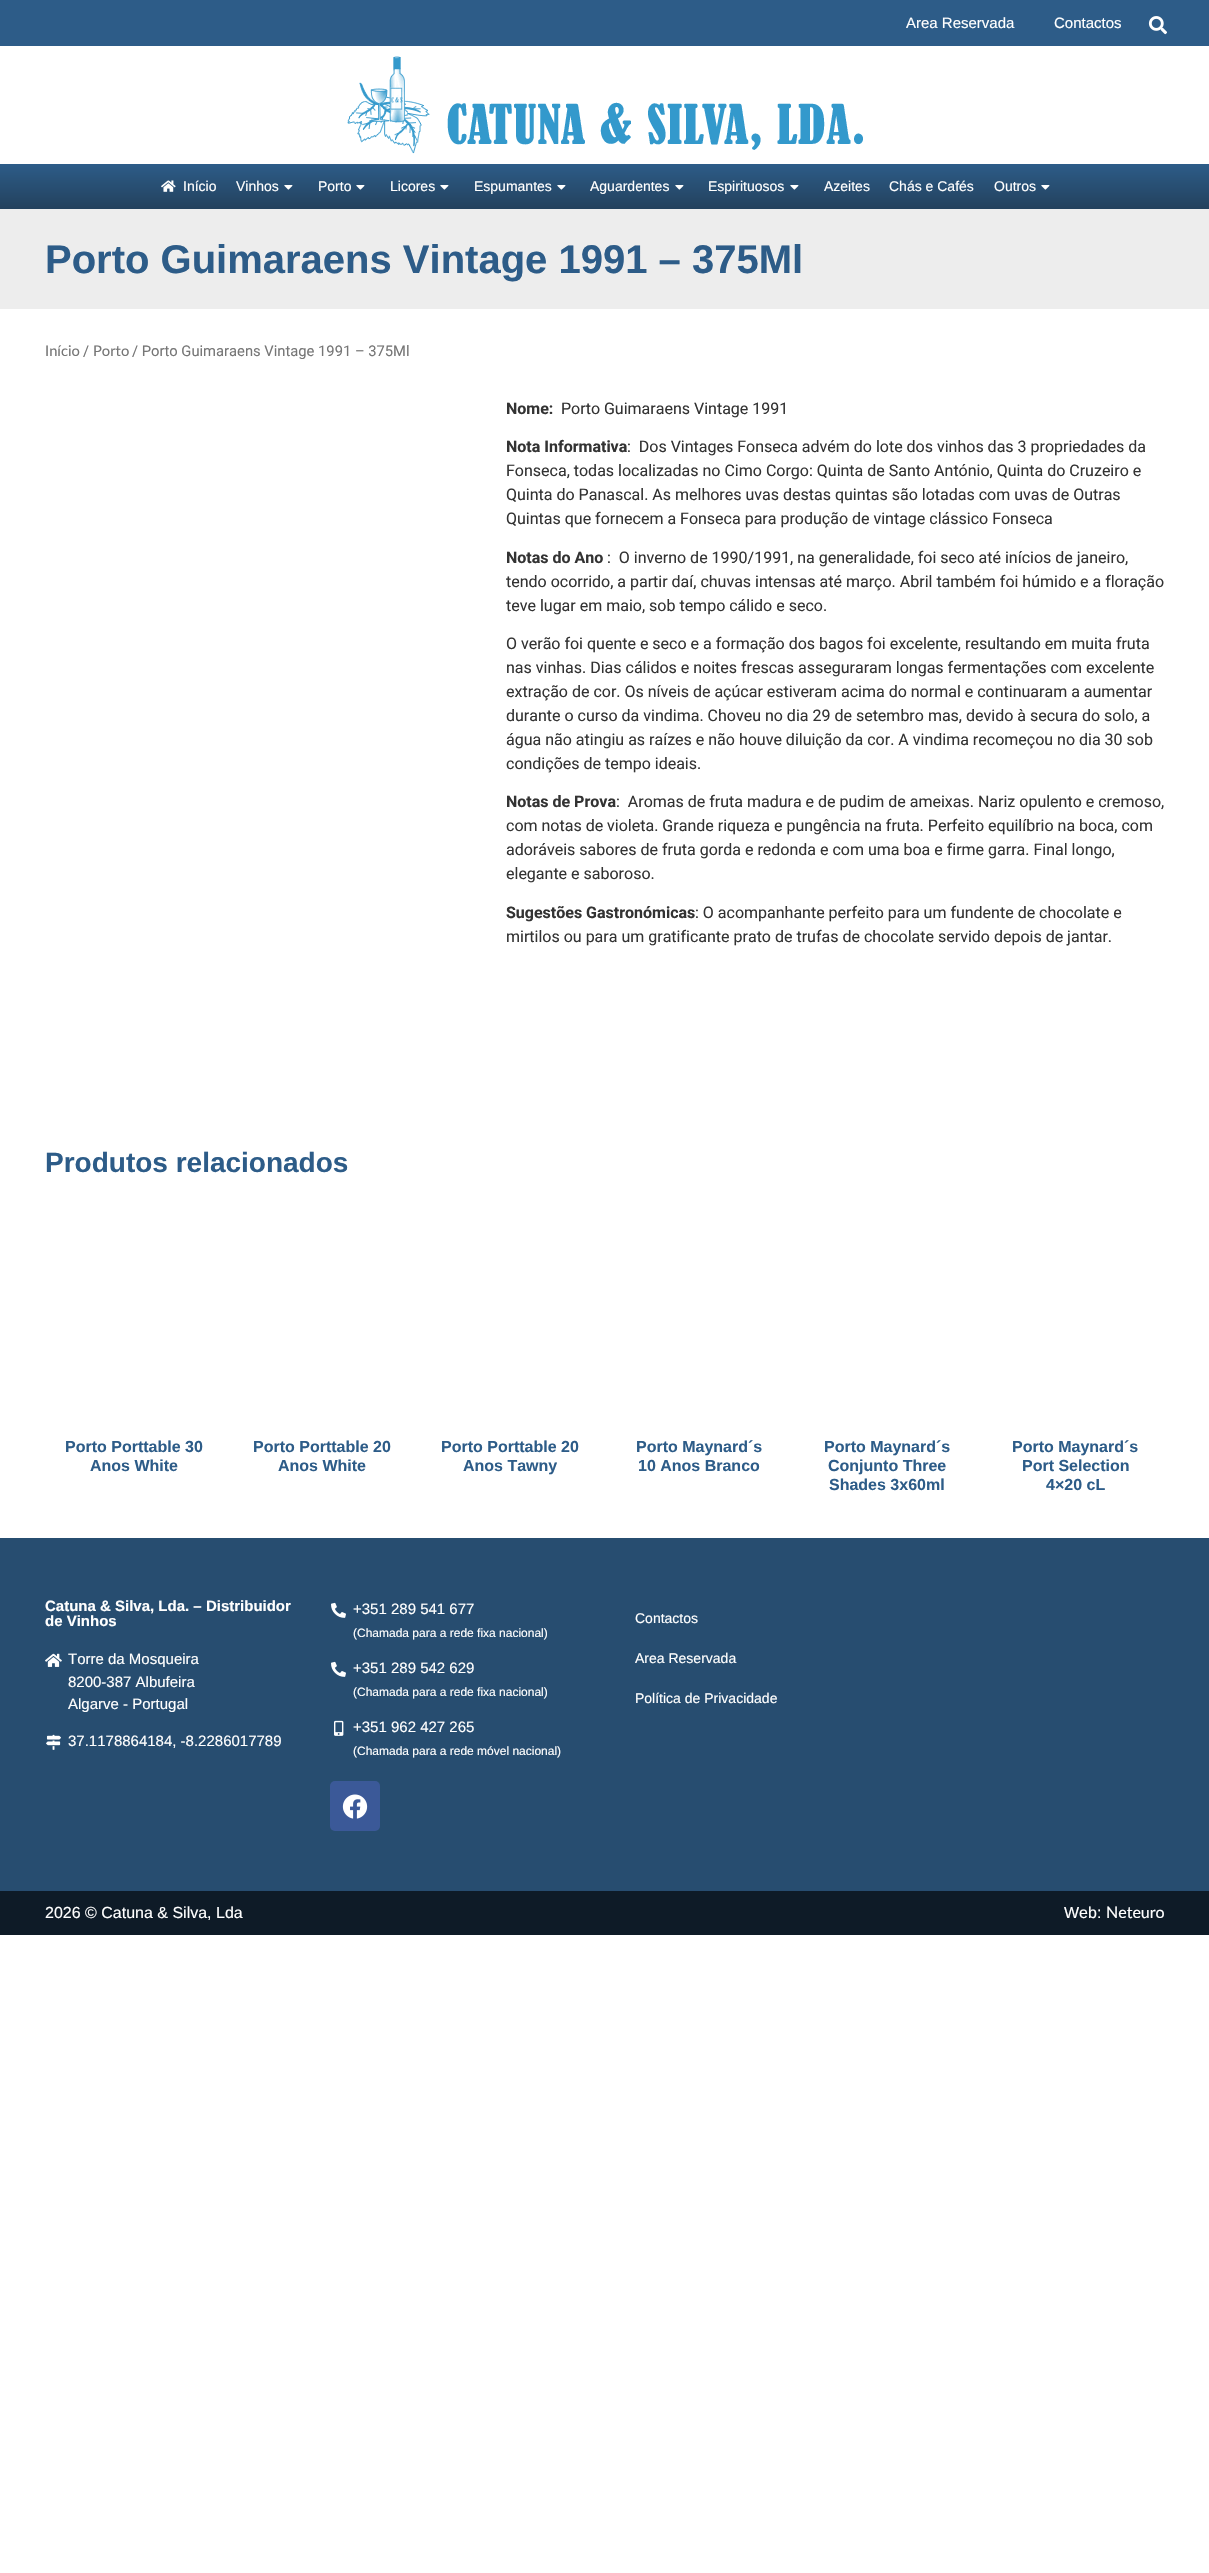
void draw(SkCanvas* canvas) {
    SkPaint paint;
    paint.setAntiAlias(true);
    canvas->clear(0xFFFFFFFF);
    paint.setColor(0xFF2D5C88);
    canvas->drawRect(SkRect::MakeXYWH(0, 0, 1209, 46), paint);
    SkFont font1(fontMgr->matchFamilyStyle("Liberation Sans", SkFontStyle::Normal()), 15);
    font1.setSubpixel(true);
    paint.setColor(0xFFFFFFFF);
    canvas->drawString("Area Reservada", 906, 28, font1, paint);
    canvas->drawString("Contactos", 1054, 28, font1, paint);
    canvas->drawImageRect(SkImages::DeferredFromEncodedData(SkData::MakeFromFileName("img1.png")), SkRect::MakeXYWH(1148, 16, 19, 19), SkSamplingOptions());
    canvas->drawImageRect(SkImages::DeferredFromEncodedData(SkData::MakeFromFileName("img2.png")), SkRect::MakeXYWH(347, 56, 516, 98), SkSamplingOptions());
    {
        const SkColor colors[] = {0xFF2D5C88, 0xFF23415D};
        const float stops[] = {0, 1};
        const SkPoint ends[] = {{605, 164}, {605, 209}};
        paint.setShader(SkGradientShader::MakeLinear(ends, colors, stops, 2, SkTileMode::kClamp));
        paint.setAlpha(255);
    }
    canvas->drawRect(SkRect::MakeXYWH(0, 164, 1209, 45), paint);
    canvas->drawImageRect(SkImages::DeferredFromEncodedData(SkData::MakeFromFileName("img3.png")), SkRect::MakeXYWH(161, 180, 15, 12), SkSamplingOptions());
    SkFont font2(fontMgr->matchFamilyStyle("Liberation Sans", SkFontStyle::Normal()), 14);
    font2.setSubpixel(true);
    paint.setShader(nullptr);
    paint.setColor(0xFFFFFFFF);
    canvas->drawString("Início", 183, 191, font2, paint);
    canvas->drawString("Vinhos", 236, 191, font2, paint);
    canvas->drawImageRect(SkImages::DeferredFromEncodedData(SkData::MakeFromFileName("img4.png")), SkRect::MakeXYWH(284, 185, 9, 5), SkSamplingOptions());
    canvas->drawString("Porto", 318, 191, font2, paint);
    canvas->drawImageRect(SkImages::DeferredFromEncodedData(SkData::MakeFromFileName("img4.png")), SkRect::MakeXYWH(356, 185, 9, 5), SkSamplingOptions());
    canvas->drawString("Licores", 390, 191, font2, paint);
    canvas->drawImageRect(SkImages::DeferredFromEncodedData(SkData::MakeFromFileName("img4.png")), SkRect::MakeXYWH(440, 185, 9, 5), SkSamplingOptions());
    canvas->drawString("Espumantes", 474, 191, font2, paint);
    canvas->drawImageRect(SkImages::DeferredFromEncodedData(SkData::MakeFromFileName("img4.png")), SkRect::MakeXYWH(557, 185, 9, 5), SkSamplingOptions());
    canvas->drawString("Aguardentes", 590, 191, font2, paint);
    canvas->drawImageRect(SkImages::DeferredFromEncodedData(SkData::MakeFromFileName("img4.png")), SkRect::MakeXYWH(675, 185, 9, 5), SkSamplingOptions());
    canvas->drawString("Espirituosos", 708, 191, font2, paint);
    canvas->drawImageRect(SkImages::DeferredFromEncodedData(SkData::MakeFromFileName("img4.png")), SkRect::MakeXYWH(790, 185, 9, 5), SkSamplingOptions());
    canvas->drawString("Azeites", 824, 191, font2, paint);
    canvas->drawString("Chás e Cafés", 889, 191, font2, paint);
    canvas->drawString("Outros", 994, 191, font2, paint);
    canvas->drawImageRect(SkImages::DeferredFromEncodedData(SkData::MakeFromFileName("img4.png")), SkRect::MakeXYWH(1041, 185, 9, 5), SkSamplingOptions());
    paint.setColor(0xFFEDEDED);
    canvas->drawRect(SkRect::MakeXYWH(0, 209, 1209, 100), paint);
    SkFont font3(fontMgr->matchFamilyStyle("Liberation Sans", SkFontStyle::Bold()), 40);
    font3.setSubpixel(true);
    paint.setColor(0xFF2D5C88);
    canvas->drawString("Porto Guimaraens Vintage 1991 – 375Ml", 45, 273, font3, paint);
    SkFont font4(fontMgr->matchFamilyStyle("Lato", SkFontStyle::Normal()), 14.75f);
    font4.setSubpixel(true);
    paint.setColor(0xFF767676);
    canvas->drawString("Início", 45, 356, font4, paint);
    SkFont font5(fontMgr->matchFamilyStyle("Roboto", SkFontStyle::Normal()), 14.75f);
    font5.setSubpixel(true);
    canvas->drawString("/", 83, 356, font5, paint);
    canvas->drawString("Porto", 93, 356, font4, paint);
    canvas->drawString("/ Porto Guimaraens Vintage 1991 – 375Ml", 132, 356, font5, paint);
    SkFont font6(fontMgr->matchFamilyStyle("Roboto", SkFontStyle::Bold()), 16);
    font6.setSubpixel(true);
    paint.setColor(0xFF333333);
    canvas->drawString("Nome:", 506, 414, font6, paint);
    SkFont font7(fontMgr->matchFamilyStyle("Roboto", SkFontStyle::Normal()), 16);
    font7.setSubpixel(true);
    canvas->drawString("Porto Guimaraens Vintage 1991", 561, 414, font7, paint);
    canvas->drawString("Nota Informativa", 506, 452, font6, paint);
    canvas->drawString(":  Dos Vintages Fonseca advém do lote dos vinhos das 3 propriedades da", 627, 452, font7, paint);
    canvas->drawString("Fonseca, todas localizadas no Cimo Corgo: Quinta de Santo António, Quinta do Cruzeiro e", 506, 476, font7, paint);
    canvas->drawString("Quinta do Panascal. As melhores uvas destas quintas são lotadas com uvas de Outras", 506, 500, font7, paint);
    canvas->drawString("Quintas que fornecem a Fonseca para produção de vintage clássico Fonseca", 506, 524, font7, paint);
    canvas->drawString("Notas do Ano", 506, 563, font6, paint);
    canvas->drawString(":  O inverno de 1990/1991, na generalidade, foi seco até inícios de janeiro,", 607, 563, font7, paint);
    canvas->drawString("tendo ocorrido, a partir daí, chuvas intensas até março. Abril também foi húmido e a floração", 506, 587, font7, paint);
    canvas->drawString("teve lugar em maio, sob tempo cálido e seco.", 506, 611, font7, paint);
    canvas->drawString("O verão foi quente e seco e a formação dos bagos foi excelente, resultando em muita fruta", 506, 649, font7, paint);
    canvas->drawString("nas vinhas. Dias cálidos e noites frescas asseguraram longas fermentações com excelente", 506, 673, font7, paint);
    canvas->drawString("extração de cor. Os níveis de açúcar estiveram acima do normal e continuaram a aumentar", 506, 697, font7, paint);
    canvas->drawString("durante o curso da vindima. Choveu no dia 29 de setembro mas, devido à secura do solo, a", 506, 721, font7, paint);
    canvas->drawString("água não atingiu as raízes e não houve diluição da cor. A vindima recomeçou no dia 30 sob", 506, 745, font7, paint);
    canvas->drawString("condições de tempo ideais.", 506, 769, font7, paint);
    canvas->drawString("Notas de Prova", 506, 807, font6, paint);
    canvas->drawString(":  Aromas de fruta madura e de pudim de ameixas. Nariz opulento e cremoso,", 616, 807, font7, paint);
    canvas->drawString("com notas de violeta. Grande riqueza e pungência na fruta. Perfeito equilíbrio na boca, com", 506, 831, font7, paint);
    canvas->drawString("adoráveis sabores de fruta gorda e redonda e com uma boa e firme garra. Final longo,", 506, 855, font7, paint);
    canvas->drawString("elegante e saboroso.", 506, 879, font7, paint);
    canvas->drawString("Sugestões Gastronómicas", 506, 918, font6, paint);
    canvas->drawString(": O acompanhante perfeito para um fundente de chocolate e", 695, 918, font7, paint);
    canvas->drawString("mirtilos ou para um gratificante prato de trufas de chocolate servido depois de jantar.", 506, 942, font7, paint);
    SkFont font8(fontMgr->matchFamilyStyle("Liberation Sans", SkFontStyle::Bold()), 28);
    font8.setSubpixel(true);
    paint.setColor(0xFF2D5C88);
    canvas->drawString("Produtos relacionados", 45, 1172, font8, paint);
    SkFont font9(fontMgr->matchFamilyStyle("Liberation Sans", SkFontStyle::Bold()), 16);
    font9.setSubpixel(true);
    canvas->drawString("Porto Porttable 30", 65, 1452, font9, paint);
    canvas->drawString("Anos White", 90, 1471, font9, paint);
    canvas->drawString("Porto Porttable 20", 253, 1452, font9, paint);
    canvas->drawString("Anos White", 278, 1471, font9, paint);
    canvas->drawString("Porto Porttable 20", 441, 1452, font9, paint);
    canvas->drawString("Anos Tawny", 463, 1471, font9, paint);
    canvas->drawString("Porto Maynard´s", 636, 1452, font9, paint);
    canvas->drawString("10 Anos Branco", 638, 1471, font9, paint);
    canvas->drawString("Porto Maynard´s", 824, 1452, font9, paint);
    canvas->drawString("Conjunto Three", 828, 1471, font9, paint);
    canvas->drawString("Shades 3x60ml", 829, 1490, font9, paint);
    canvas->drawString("Porto Maynard´s", 1012, 1452, font9, paint);
    canvas->drawString("Port Selection", 1022, 1471, font9, paint);
    canvas->drawString("4×20 cL", 1046, 1490, font9, paint);
    paint.setColor(0xFF274D70);
    canvas->drawRect(SkRect::MakeXYWH(0, 1538, 1209, 353), paint);
    SkFont font10(fontMgr->matchFamilyStyle("Liberation Sans", SkFontStyle::Bold()), 15);
    font10.setSubpixel(true);
    paint.setColor(0xFFFFFFFF);
    canvas->drawString("Catuna & Silva, Lda. – Distribuidor", 45, 1611, font10, paint);
    canvas->drawString("de Vinhos", 45, 1626, font10, paint);
    canvas->drawImageRect(SkImages::DeferredFromEncodedData(SkData::MakeFromFileName("img5.png")), SkRect::MakeXYWH(45, 1653, 17, 14), SkSamplingOptions());
    canvas->drawString("Torre da Mosqueira", 68, 1664, font1, paint);
    canvas->drawString("8200-387 Albufeira", 68, 1687, font1, paint);
    canvas->drawString("Algarve - Portugal", 68, 1709, font1, paint);
    canvas->drawImageRect(SkImages::DeferredFromEncodedData(SkData::MakeFromFileName("img6.png")), SkRect::MakeXYWH(46, 1734, 15, 16), SkSamplingOptions());
    canvas->drawString("37.1178864184, -8.2286017789", 68, 1746, font1, paint);
    canvas->drawImageRect(SkImages::DeferredFromEncodedData(SkData::MakeFromFileName("img7.png")), SkRect::MakeXYWH(331, 1602, 15, 16), SkSamplingOptions());
    canvas->drawString("+351 289 541 677", 353, 1614, font1, paint);
    SkFont font11(fontMgr->matchFamilyStyle("Liberation Sans", SkFontStyle::Normal()), 12);
    font11.setSubpixel(true);
    canvas->drawString("(Chamada para a rede fixa nacional)", 353, 1637, font11, paint);
    canvas->drawImageRect(SkImages::DeferredFromEncodedData(SkData::MakeFromFileName("img7.png")), SkRect::MakeXYWH(331, 1661, 15, 16), SkSamplingOptions());
    canvas->drawString("+351 289 542 629", 353, 1673, font1, paint);
    canvas->drawString("(Chamada para a rede fixa nacional)", 353, 1696, font11, paint);
    canvas->drawImageRect(SkImages::DeferredFromEncodedData(SkData::MakeFromFileName("img8.png")), SkRect::MakeXYWH(334, 1720, 10, 16), SkSamplingOptions());
    canvas->drawString("+351 962 427 265", 353, 1732, font1, paint);
    canvas->drawString("(Chamada para a rede móvel nacional)", 353, 1755, font11, paint);
    paint.setColor(0xFF3B5998);
    canvas->drawRoundRect(SkRect::MakeXYWH(330, 1781, 50, 50), 5, 5, paint);
    canvas->drawImageRect(SkImages::DeferredFromEncodedData(SkData::MakeFromFileName("img9.png")), SkRect::MakeXYWH(342, 1794, 26, 25), SkSamplingOptions());
    paint.setColor(0xFFFFFFFF);
    canvas->drawString("Contactos", 635, 1623, font2, paint);
    canvas->drawString("Area Reservada", 635, 1663, font2, paint);
    canvas->drawString("Política de Privacidade", 635, 1703, font2, paint);
    paint.setColor(0xFF0E1B27);
    canvas->drawRect(SkRect::MakeXYWH(0, 1891, 1209, 44), paint);
    SkFont font12(fontMgr->matchFamilyStyle("Liberation Sans", SkFontStyle::Normal()), 16);
    font12.setSubpixel(true);
    paint.setColor(0xFFFFFFFF);
    canvas->drawString("2026 © Catuna & Silva, Lda", 45, 1918, font12, paint);
    canvas->drawString("Web:", 1064, 1918, font12, paint);
    SkFont font13(fontMgr->matchFamilyStyle("Lato", SkFontStyle::Normal()), 16);
    font13.setSubpixel(true);
    canvas->drawString("Neteuro", 1106, 1918, font13, paint);
}
